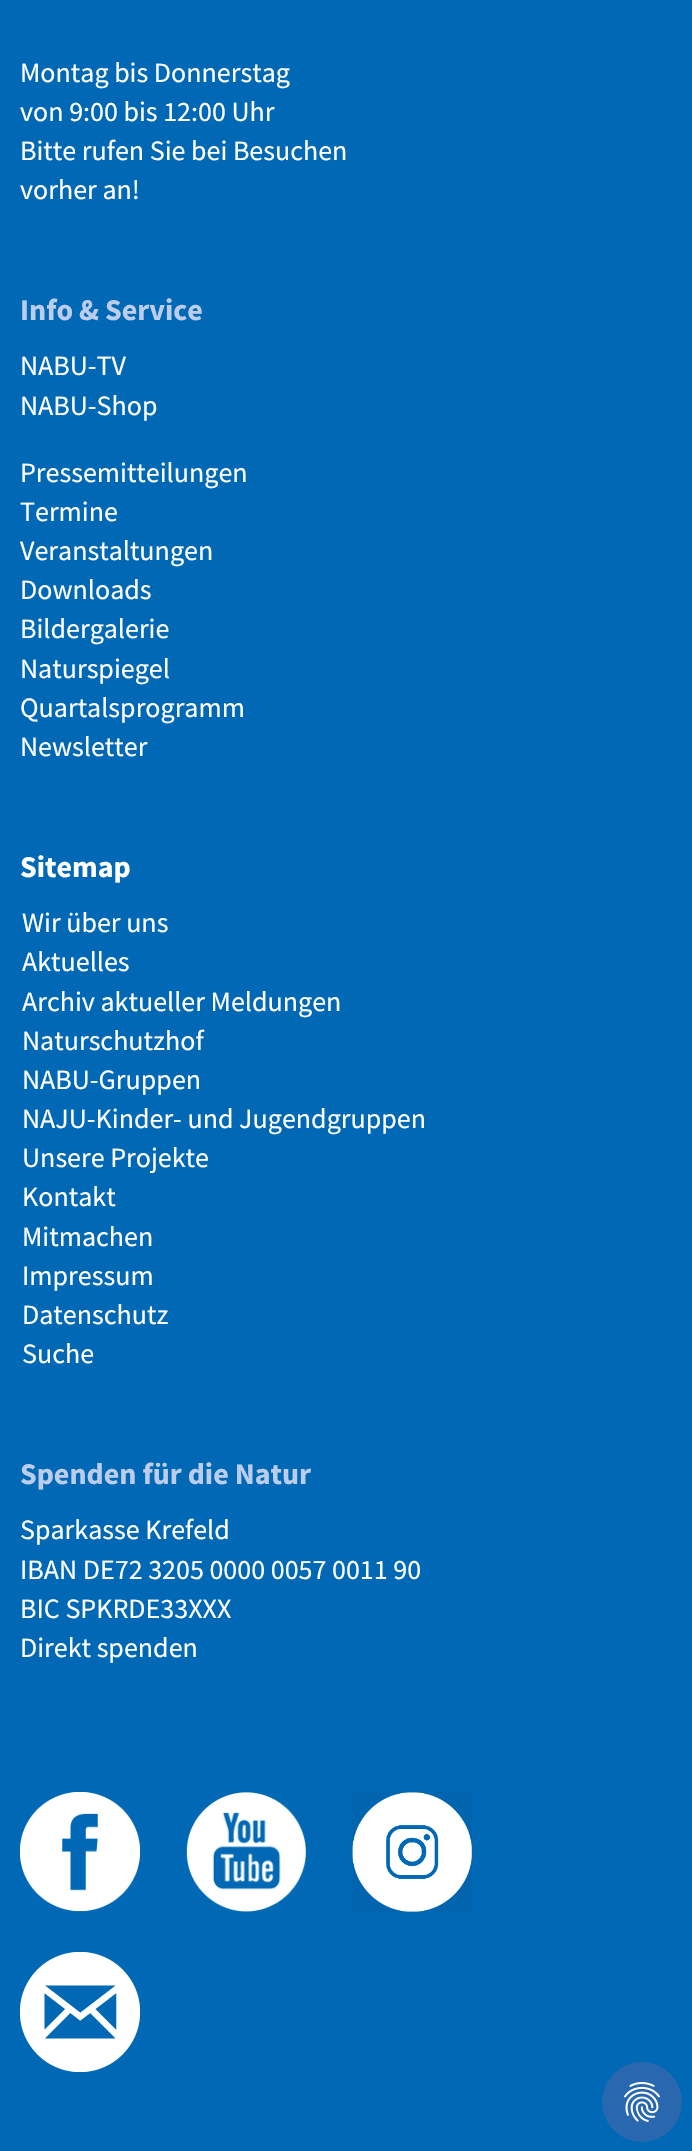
void draw(SkCanvas* canvas) {
    SkPaint paint;
    paint.setAntiAlias(true);
    canvas->clear(0xFF0068B4);
    SkFont font1(fontMgr->matchFamilyStyle("Source Sans Pro", SkFontStyle::Normal()), 28);
    font1.setSubpixel(true);
    paint.setColor(0xFFFFFFFF);
    canvas->drawString("Montag bis Donnerstag", 20, 82, font1, paint);
    canvas->drawString("von 9:00 bis 12:00 Uhr", 20, 121, font1, paint);
    canvas->drawString("Bitte rufen Sie bei Besuchen", 20, 160, font1, paint);
    canvas->drawString("vorher an!", 20, 199, font1, paint);
    SkFont font2(fontMgr->matchFamilyStyle("Source Sans Pro", SkFontStyle::Bold()), 30);
    font2.setSubpixel(true);
    paint.setColor(0xFFBCCDEB);
    canvas->drawString("Info & Service", 20, 320, font2, paint);
    paint.setColor(0xFFFFFFFF);
    canvas->drawString("NABU-TV", 20, 375, font1, paint);
    canvas->drawString("NABU-Shop", 20, 415, font1, paint);
    canvas->drawString("Pressemitteilungen", 20, 482, font1, paint);
    canvas->drawString("Termine", 20, 521, font1, paint);
    canvas->drawString("Veranstaltungen", 20, 560, font1, paint);
    canvas->drawString("Downloads", 20, 599, font1, paint);
    canvas->drawString("Bildergalerie", 20, 638, font1, paint);
    canvas->drawString("Naturspiegel", 20, 678, font1, paint);
    canvas->drawString("Quartalsprogramm", 20, 717, font1, paint);
    canvas->drawString("Newsletter", 20, 756, font1, paint);
    canvas->drawString("Sitemap", 20, 877, font2, paint);
    canvas->drawString("Wir über uns", 22, 932, font1, paint);
    canvas->drawString("Aktuelles", 22, 971, font1, paint);
    canvas->drawString("Archiv aktueller Meldungen", 22, 1011, font1, paint);
    canvas->drawString("Naturschutzhof", 22, 1050, font1, paint);
    canvas->drawString("NABU-Gruppen", 22, 1089, font1, paint);
    canvas->drawString("NAJU-Kinder- und Jugendgruppen", 22, 1128, font1, paint);
    canvas->drawString("Unsere Projekte", 22, 1167, font1, paint);
    canvas->drawString("Kontakt", 22, 1206, font1, paint);
    canvas->drawString("Mitmachen", 22, 1246, font1, paint);
    canvas->drawString("Impressum", 22, 1285, font1, paint);
    canvas->drawString("Datenschutz", 22, 1324, font1, paint);
    canvas->drawString("Suche", 22, 1363, font1, paint);
    paint.setColor(0xFFBCCDEB);
    canvas->drawString("Spenden für die Natur", 20, 1484, font2, paint);
    paint.setColor(0xFFFFFFFF);
    canvas->drawString("Sparkasse Krefeld", 20, 1539, font1, paint);
    canvas->drawString("IBAN DE72 3205 0000 0057 0011 90", 20, 1579, font1, paint);
    canvas->drawString("BIC SPKRDE33XXX", 20, 1618, font1, paint);
    canvas->drawString("Direkt spenden", 20, 1657, font1, paint);
    canvas->drawImageRect(SkImages::DeferredFromEncodedData(SkData::MakeFromFileName("img1.png")), SkRect::MakeXYWH(20, 1792, 120, 120), SkSamplingOptions());
    canvas->drawImageRect(SkImages::DeferredFromEncodedData(SkData::MakeFromFileName("img2.png")), SkRect::MakeXYWH(186, 1792, 120, 120), SkSamplingOptions());
    canvas->drawImageRect(SkImages::DeferredFromEncodedData(SkData::MakeFromFileName("img3.png")), SkRect::MakeXYWH(352, 1792, 120, 120), SkSamplingOptions());
    canvas->drawImageRect(SkImages::DeferredFromEncodedData(SkData::MakeFromFileName("img4.png")), SkRect::MakeXYWH(20, 1952, 120, 120), SkSamplingOptions());
    paint.setColor(0xFF2968AE);
    canvas->drawCircle(642, 2102, 40, paint);
    canvas->drawImageRect(SkImages::DeferredFromEncodedData(SkData::MakeFromFileName("img5.png")), SkRect::MakeXYWH(624, 2082, 36, 40), SkSamplingOptions());
}
